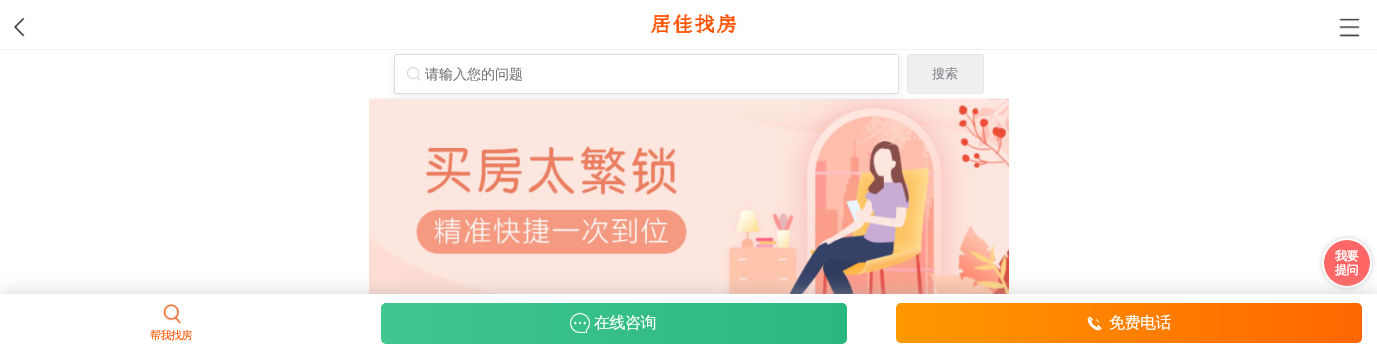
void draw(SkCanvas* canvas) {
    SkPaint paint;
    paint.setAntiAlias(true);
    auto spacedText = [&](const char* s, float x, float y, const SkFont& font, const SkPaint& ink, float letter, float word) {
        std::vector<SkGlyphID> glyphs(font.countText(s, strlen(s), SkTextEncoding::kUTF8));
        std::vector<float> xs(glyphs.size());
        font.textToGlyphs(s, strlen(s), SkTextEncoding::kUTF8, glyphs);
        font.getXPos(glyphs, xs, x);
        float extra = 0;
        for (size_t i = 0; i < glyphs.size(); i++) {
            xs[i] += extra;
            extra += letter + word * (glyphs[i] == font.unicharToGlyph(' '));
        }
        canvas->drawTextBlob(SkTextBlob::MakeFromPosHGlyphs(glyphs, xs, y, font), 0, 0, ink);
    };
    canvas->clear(0xFFFFFFFF);
    paint.setColor(0xFFF1F1F1);
    canvas->drawRect(SkRect::MakeXYWH(0, 49, 1377, 1), paint);
    canvas->drawImageRect(SkImages::DeferredFromEncodedData(SkData::MakeFromFileName("img1.png")), SkRect::MakeXYWH(14, 17, 11, 20), SkSamplingOptions());
    canvas->drawImageRect(SkImages::DeferredFromEncodedData(SkData::MakeFromFileName("img2.png")), SkRect::MakeXYWH(650, 14, 87, 19), SkSamplingOptions());
    canvas->drawImageRect(SkImages::DeferredFromEncodedData(SkData::MakeFromFileName("img3.png")), SkRect::MakeXYWH(1339, 18, 21, 19), SkSamplingOptions());
    paint.setColor(0xFFF4F4F4);
    canvas->drawRect(SkRect::MakeXYWH(369, 98, 640, 1), paint);
    paint.setColor(0xFFEFEFEF);
    canvas->drawRoundRect(SkRect::MakeXYWH(907.5f, 54.5f, 76, 39), 2.5f, 2.5f, paint);
    paint.setStyle(SkPaint::kStroke_Style);
    paint.setStrokeWidth(1);
    paint.setColor(0xFFE3E7ED);
    canvas->drawRoundRect(SkRect::MakeXYWH(907.5f, 54.5f, 76, 39), 2.5f, 2.5f, paint);
    canvas->drawImageRect(SkImages::DeferredFromEncodedData(SkData::MakeFromFileName("img5.png")), SkRect::MakeXYWH(369, 99, 640, 195), SkSamplingOptions());
    paint.setStyle(SkPaint::kFill_Style);
    paint.setColor(0xBFE4E7F0);
    paint.setMaskFilter(SkMaskFilter::MakeBlur(kNormal_SkBlurStyle, 4));
    canvas->drawRoundRect(SkRect::MakeXYWH(394, 56, 505, 40), 2, 2, paint);
    paint.setMaskFilter(nullptr);
    paint.setColor(0xFFFFFFFF);
    canvas->drawRoundRect(SkRect::MakeXYWH(394.5f, 54.5f, 504, 39), 1.5f, 1.5f, paint);
    paint.setStyle(SkPaint::kStroke_Style);
    paint.setColor(0xFFDDDDDD);
    canvas->drawRoundRect(SkRect::MakeXYWH(394.5f, 54.5f, 504, 39), 1.5f, 1.5f, paint);
    canvas->drawImageRect(SkImages::DeferredFromEncodedData(SkData::MakeFromFileName("img4.png")), SkRect::MakeXYWH(407, 67, 14, 14), SkSamplingOptions());
    paint.setStyle(SkPaint::kFill_Style);
    paint.setColor(0xFFFFFFFF);
    canvas->drawRect(SkRect::MakeXYWH(897, 55, 1, 38), paint);
    SkFont font1(fontMgr->matchFamilyStyle("WenQuanYi Zen Hei", SkFontStyle(500, SkFontStyle::kNormal_Width, SkFontStyle::kUpright_Slant)), 14);
    font1.setSubpixel(true);
    paint.setColor(0xFF757575);
    canvas->drawString("请输入您的问题", 425, 79, font1, paint);
    SkFont font2(fontMgr->matchFamilyStyle("WenQuanYi Zen Hei", SkFontStyle(500, SkFontStyle::kNormal_Width, SkFontStyle::kUpright_Slant)), 13);
    font2.setSubpixel(true);
    paint.setColor(0xFF83868F);
    canvas->drawString("搜索", 932, 78, font2, paint);
    paint.setColor(0x33000000);
    paint.setMaskFilter(SkMaskFilter::MakeBlur(kNormal_SkBlurStyle, 2.5f));
    canvas->drawRoundRect(SkRect::MakeXYWH(1322, 238, 50, 50), 25, 25, paint);
    paint.setMaskFilter(nullptr);
    paint.setColor(0xFFFFFFFF);
    canvas->drawCircle(1347, 263, 25, paint);
    paint.setColor(0xFFFF6666);
    canvas->drawCircle(1347, 263, 23, paint);
    SkFont font3(fontMgr->matchFamilyStyle("WenQuanYi Zen Hei", SkFontStyle::Bold()), 12);
    font3.setSubpixel(true);
    paint.setColor(0xFFFFFFFF);
    spacedText("我要", 1335, 260, font3, paint, -0.5f, 0);
    spacedText("提问", 1335, 274, font3, paint, -0.5f, 0);
    paint.setColor(0x91AEAEAE);
    paint.setMaskFilter(SkMaskFilter::MakeBlur(kNormal_SkBlurStyle, 10));
    canvas->drawRect(SkRect::MakeXYWH(0, 294, 1377, 57), paint);
    paint.setMaskFilter(nullptr);
    paint.setColor(0xFFFFFFFF);
    canvas->drawRect(SkRect::MakeXYWH(0, 294, 1377, 57), paint);
    {
        const SkColor colors[] = {0xFF41C68F, 0xFF2AB87E};
        const float stops[] = {0, 1};
        const SkPoint ends[] = {{381, 324}, {847, 324}};
        paint.setShader(SkGradientShader::MakeLinear(ends, colors, stops, 2, SkTileMode::kClamp));
        paint.setAlpha(255);
    }
    canvas->drawRoundRect(SkRect::MakeXYWH(381, 303, 466, 41), 5, 5, paint);
    canvas->drawImageRect(SkImages::DeferredFromEncodedData(SkData::MakeFromFileName("img6.png")), SkRect::MakeXYWH(570, 312, 20, 21), SkSamplingOptions());
    SkFont font4(fontMgr->matchFamilyStyle("WenQuanYi Zen Hei", SkFontStyle(500, SkFontStyle::kNormal_Width, SkFontStyle::kUpright_Slant)), 16);
    font4.setSubpixel(true);
    paint.setShader(nullptr);
    paint.setColor(0xFFFFFFFF);
    spacedText("在线咨询", 594, 328, font4, paint, -0.5f, 0);
    {
        const SkColor colors[] = {0xFFFF9900, 0xFFFF6600};
        const float stops[] = {0, 1};
        const SkPoint ends[] = {{896, 323}, {1362, 323}};
        paint.setShader(SkGradientShader::MakeLinear(ends, colors, stops, 2, SkTileMode::kClamp));
        paint.setAlpha(255);
    }
    canvas->drawRoundRect(SkRect::MakeXYWH(896, 303, 466, 40), 5, 5, paint);
    canvas->drawImageRect(SkImages::DeferredFromEncodedData(SkData::MakeFromFileName("img7.png")), SkRect::MakeXYWH(1087, 316, 15, 15), SkSamplingOptions());
    paint.setShader(nullptr);
    paint.setColor(0xFFFFFFFF);
    spacedText("免费电话", 1109, 328, font4, paint, -0.5f, 0);
    canvas->drawImageRect(SkImages::DeferredFromEncodedData(SkData::MakeFromFileName("img8.png")), SkRect::MakeXYWH(163, 304, 19, 20), SkSamplingOptions());
    SkFont font5(fontMgr->matchFamilyStyle("WenQuanYi Zen Hei", SkFontStyle(500, SkFontStyle::kNormal_Width, SkFontStyle::kUpright_Slant)), 11);
    font5.setSubpixel(true);
    paint.setColor(0xFFFF5200);
    spacedText("帮我找房", 150, 339, font5, paint, -0.5f, 0);
}
